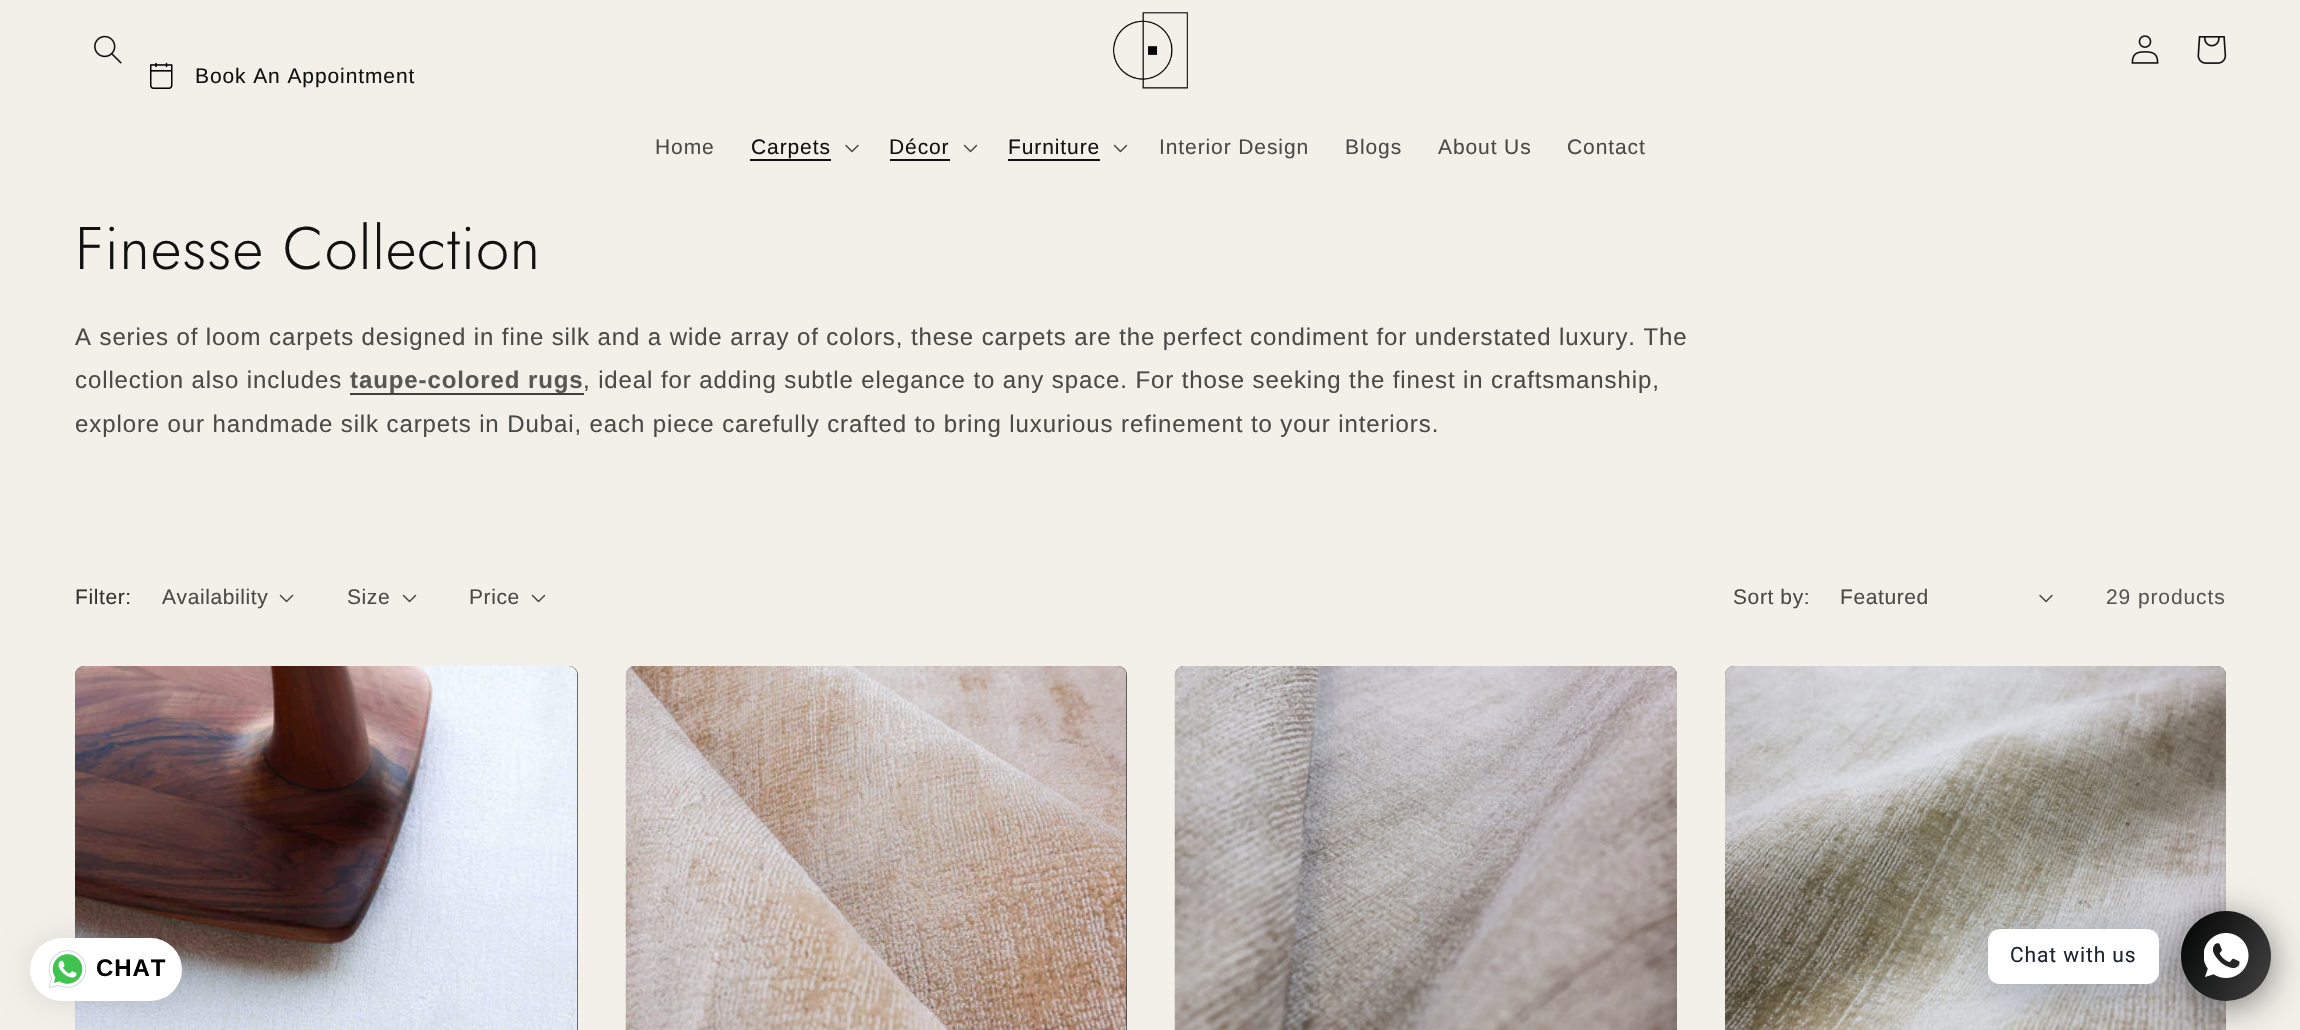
void draw(SkCanvas* canvas) {
    SkPaint paint;
    paint.setAntiAlias(true);
    auto spacedText = [&](const char* s, float x, float y, const SkFont& font, const SkPaint& ink, float letter, float word) {
        std::vector<SkGlyphID> glyphs(font.countText(s, strlen(s), SkTextEncoding::kUTF8));
        std::vector<float> xs(glyphs.size());
        font.textToGlyphs(s, strlen(s), SkTextEncoding::kUTF8, glyphs);
        font.getXPos(glyphs, xs, x);
        float extra = 0;
        for (size_t i = 0; i < glyphs.size(); i++) {
            xs[i] += extra;
            extra += letter + word * (glyphs[i] == font.unicharToGlyph(' '));
        }
        canvas->drawTextBlob(SkTextBlob::MakeFromPosHGlyphs(glyphs, xs, y, font), 0, 0, ink);
    };
    canvas->clear(0xFFF2F0E9);
    canvas->drawImageRect(SkImages::DeferredFromEncodedData(SkData::MakeFromFileName("img1.png")), SkRect::MakeXYWH(150, 62, 23, 27), SkSamplingOptions());
    SkFont font1(fontMgr->matchFamilyStyle("Liberation Sans", SkFontStyle::Normal()), 21);
    font1.setSubpixel(true);
    paint.setColor(0xFF121212);
    spacedText("Book An Appointment", 195, 83, font1, paint, 0.9f, 0);
    canvas->drawImageRect(SkImages::DeferredFromEncodedData(SkData::MakeFromFileName("img2.png")), SkRect::MakeXYWH(94, 35, 28, 29), SkSamplingOptions());
    canvas->drawImageRect(SkImages::DeferredFromEncodedData(SkData::MakeFromFileName("img3.png")), SkRect::MakeXYWH(1113, 12, 75, 77), SkSamplingOptions());
    canvas->drawImageRect(SkImages::DeferredFromEncodedData(SkData::MakeFromFileName("img4.png")), SkRect::MakeXYWH(2131, 35, 28, 29), SkSamplingOptions());
    canvas->drawImageRect(SkImages::DeferredFromEncodedData(SkData::MakeFromFileName("img5.png")), SkRect::MakeXYWH(2197, 36, 30, 28), SkSamplingOptions());
    paint.setColor(0xFF4A4A48);
    spacedText("Home", 655, 154, font1, paint, 0.9f, 0);
    paint.setColor(0xFF121212);
    spacedText("Carpets", 751, 154, font1, paint, 0.9f, 0);
    canvas->drawRect(SkRect::MakeXYWH(750, 159, 81, 2), paint);
    canvas->drawImageRect(SkImages::DeferredFromEncodedData(SkData::MakeFromFileName("img6.png")), SkRect::MakeXYWH(845, 144, 14, 9), SkSamplingOptions());
    spacedText("Décor", 889, 154, font1, paint, 0.9f, 0);
    canvas->drawRect(SkRect::MakeXYWH(890, 159, 60, 2), paint);
    canvas->drawImageRect(SkImages::DeferredFromEncodedData(SkData::MakeFromFileName("img7.png")), SkRect::MakeXYWH(963, 144, 15, 9), SkSamplingOptions());
    spacedText("Furniture", 1008, 154, font1, paint, 0.9f, 0);
    canvas->drawRect(SkRect::MakeXYWH(1008, 159, 92, 2), paint);
    canvas->drawImageRect(SkImages::DeferredFromEncodedData(SkData::MakeFromFileName("img7.png")), SkRect::MakeXYWH(1113, 144, 15, 9), SkSamplingOptions());
    paint.setColor(0xFF4A4A48);
    spacedText("Interior Design", 1159, 154, font1, paint, 0.9f, 0);
    spacedText("Blogs", 1345, 154, font1, paint, 0.9f, 0);
    spacedText("About Us", 1438, 154, font1, paint, 0.9f, 0);
    spacedText("Contact", 1567, 154, font1, paint, 0.9f, 0);
    SkFont font2(fontMgr->matchFamilyStyle("Jost", SkFontStyle(300, SkFontStyle::kNormal_Width, SkFontStyle::kUpright_Slant)), 60);
    font2.setSubpixel(true);
    paint.setColor(0xFF121212);
    spacedText("Finesse Collection", 75, 269, font2, paint, 0.9f, 0);
    SkFont font3(fontMgr->matchFamilyStyle("Liberation Sans", SkFontStyle::Normal()), 24);
    font3.setSubpixel(true);
    paint.setColor(0xFF4A4A48);
    spacedText("A series of loom carpets designed in fine silk and a wide array of colors, these carpets are the perfect condiment for understated luxury. The", 75, 345, font3, paint, 0.9f, 0);
    spacedText("collection also includes", 75, 388, font3, paint, 0.9f, 0);
    paint.setColor(0xFF404040);
    canvas->drawRect(SkRect::MakeXYWH(350, 393, 234, 2), paint);
    SkFont font4(fontMgr->matchFamilyStyle("Liberation Sans", SkFontStyle::Bold()), 24);
    font4.setSubpixel(true);
    paint.setColor(0xFF575756);
    spacedText("taupe-colored rugs", 350, 388, font4, paint, 0.9f, 0);
    paint.setColor(0xFF4A4A48);
    spacedText(", ideal for adding subtle elegance to any space. For those seeking the finest in craftsmanship,", 583, 388, font3, paint, 0.9f, 0);
    spacedText("explore our handmade silk carpets in Dubai, each piece carefully crafted to bring luxurious refinement to your interiors.", 75, 432, font3, paint, 0.9f, 0);
    paint.setColor(0xFF343332);
    spacedText("Filter:", 75, 604, font1, paint, 0.6f, 0);
    paint.setColor(0xFF4A4A48);
    spacedText("Availability", 162, 604, font1, paint, 0.6f, 0);
    canvas->drawImageRect(SkImages::DeferredFromEncodedData(SkData::MakeFromFileName("img7.png")), SkRect::MakeXYWH(279, 594, 15, 9), SkSamplingOptions());
    spacedText("Size", 347, 604, font1, paint, 0.6f, 0);
    canvas->drawImageRect(SkImages::DeferredFromEncodedData(SkData::MakeFromFileName("img7.png")), SkRect::MakeXYWH(402, 594, 15, 9), SkSamplingOptions());
    spacedText("Price", 469, 604, font1, paint, 0.6f, 0);
    canvas->drawImageRect(SkImages::DeferredFromEncodedData(SkData::MakeFromFileName("img7.png")), SkRect::MakeXYWH(531, 594, 15, 9), SkSamplingOptions());
    spacedText("Sort by:", 1733, 604, font1, paint, 0.6f, 0);
    spacedText("Featured", 1840, 604, font1, paint, 0.6f, 0);
    canvas->drawImageRect(SkImages::DeferredFromEncodedData(SkData::MakeFromFileName("img6.png")), SkRect::MakeXYWH(2039, 594, 14, 9), SkSamplingOptions());
    paint.setColor(0xFF575756);
    spacedText("29 products", 2106, 604, font1, paint, 0.9f, 0);
    paint.setColor(0xFF3C3C3C);
    canvas->drawRoundRect(SkRect::MakeXYWH(75, 666, 503, 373), 9, 9, paint);
    canvas->drawImageRect(SkImages::DeferredFromEncodedData(SkData::MakeFromFileName("img8.png")), SkRect::MakeXYWH(75, 666, 503, 364), SkSamplingOptions());
    canvas->drawRoundRect(SkRect::MakeXYWH(626, 666, 501, 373), 9, 9, paint);
    canvas->drawImageRect(SkImages::DeferredFromEncodedData(SkData::MakeFromFileName("img9.png")), SkRect::MakeXYWH(625, 666, 502, 364), SkSamplingOptions());
    canvas->drawRoundRect(SkRect::MakeXYWH(1175, 666, 502, 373), 9, 9, paint);
    canvas->drawImageRect(SkImages::DeferredFromEncodedData(SkData::MakeFromFileName("img10.png")), SkRect::MakeXYWH(1174, 666, 503, 364), SkSamplingOptions());
    canvas->drawRoundRect(SkRect::MakeXYWH(1725, 666, 501, 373), 9, 9, paint);
    canvas->drawImageRect(SkImages::DeferredFromEncodedData(SkData::MakeFromFileName("img11.png")), SkRect::MakeXYWH(1725, 666, 501, 364), SkSamplingOptions());
    paint.setColor(0x80000000);
    paint.setMaskFilter(SkMaskFilter::MakeBlur(kNormal_SkBlurStyle, 18));
    canvas->drawRoundRect(SkRect::MakeXYWH(2181, 917, 90, 90), 45, 45, paint);
    paint.setMaskFilter(nullptr);
    {
        const SkColor colors[] = {0xFF000000, 0xFF434343};
        const float stops[] = {0, 1};
        const SkPoint ends[] = {{2172, 930}, {2280, 981}};
        paint.setShader(SkGradientShader::MakeLinear(ends, colors, stops, 2, SkTileMode::kClamp));
        paint.setAlpha(255);
    }
    canvas->drawCircle(2226, 956, 45, paint);
    paint.setShader(nullptr);
    paint.setColor(0x3D00122E);
    paint.setMaskFilter(SkMaskFilter::MakeBlur(kNormal_SkBlurStyle, 24));
    canvas->drawRoundRect(SkRect::MakeXYWH(1988, 938, 171, 55), 12, 12, paint);
    paint.setMaskFilter(nullptr);
    paint.setColor(0xFFFFFFFF);
    canvas->drawRoundRect(SkRect::MakeXYWH(1988, 929, 171, 55), 12, 12, paint);
    SkFont font5(fontMgr->matchFamilyStyle("Roboto", SkFontStyle::Normal()), 21);
    font5.setSubpixel(true);
    paint.setColor(0xFF1E2433);
    spacedText("Chat with us", 2010, 962, font5, paint, 0.9f, 0);
    canvas->drawImageRect(SkImages::DeferredFromEncodedData(SkData::MakeFromFileName("img12.png")), SkRect::MakeXYWH(2204, 933, 45, 45), SkSamplingOptions());
    paint.setColor(0x1A000000);
    paint.setMaskFilter(SkMaskFilter::MakeBlur(kNormal_SkBlurStyle, 15));
    canvas->drawRoundRect(SkRect::MakeXYWH(30, 939, 152, 63), 31.5f, 31.5f, paint);
    paint.setMaskFilter(nullptr);
    paint.setColor(0xFFFFFFFF);
    canvas->drawRoundRect(SkRect::MakeXYWH(30, 938, 152, 63), 31.5f, 31.5f, paint);
    canvas->drawImageRect(SkImages::DeferredFromEncodedData(SkData::MakeFromFileName("img13.png")), SkRect::MakeXYWH(48, 950, 39, 38), SkSamplingOptions());
    paint.setColor(0xFF000000);
    spacedText("CHAT", 96, 976, font4, paint, 0.9f, 0);
}
